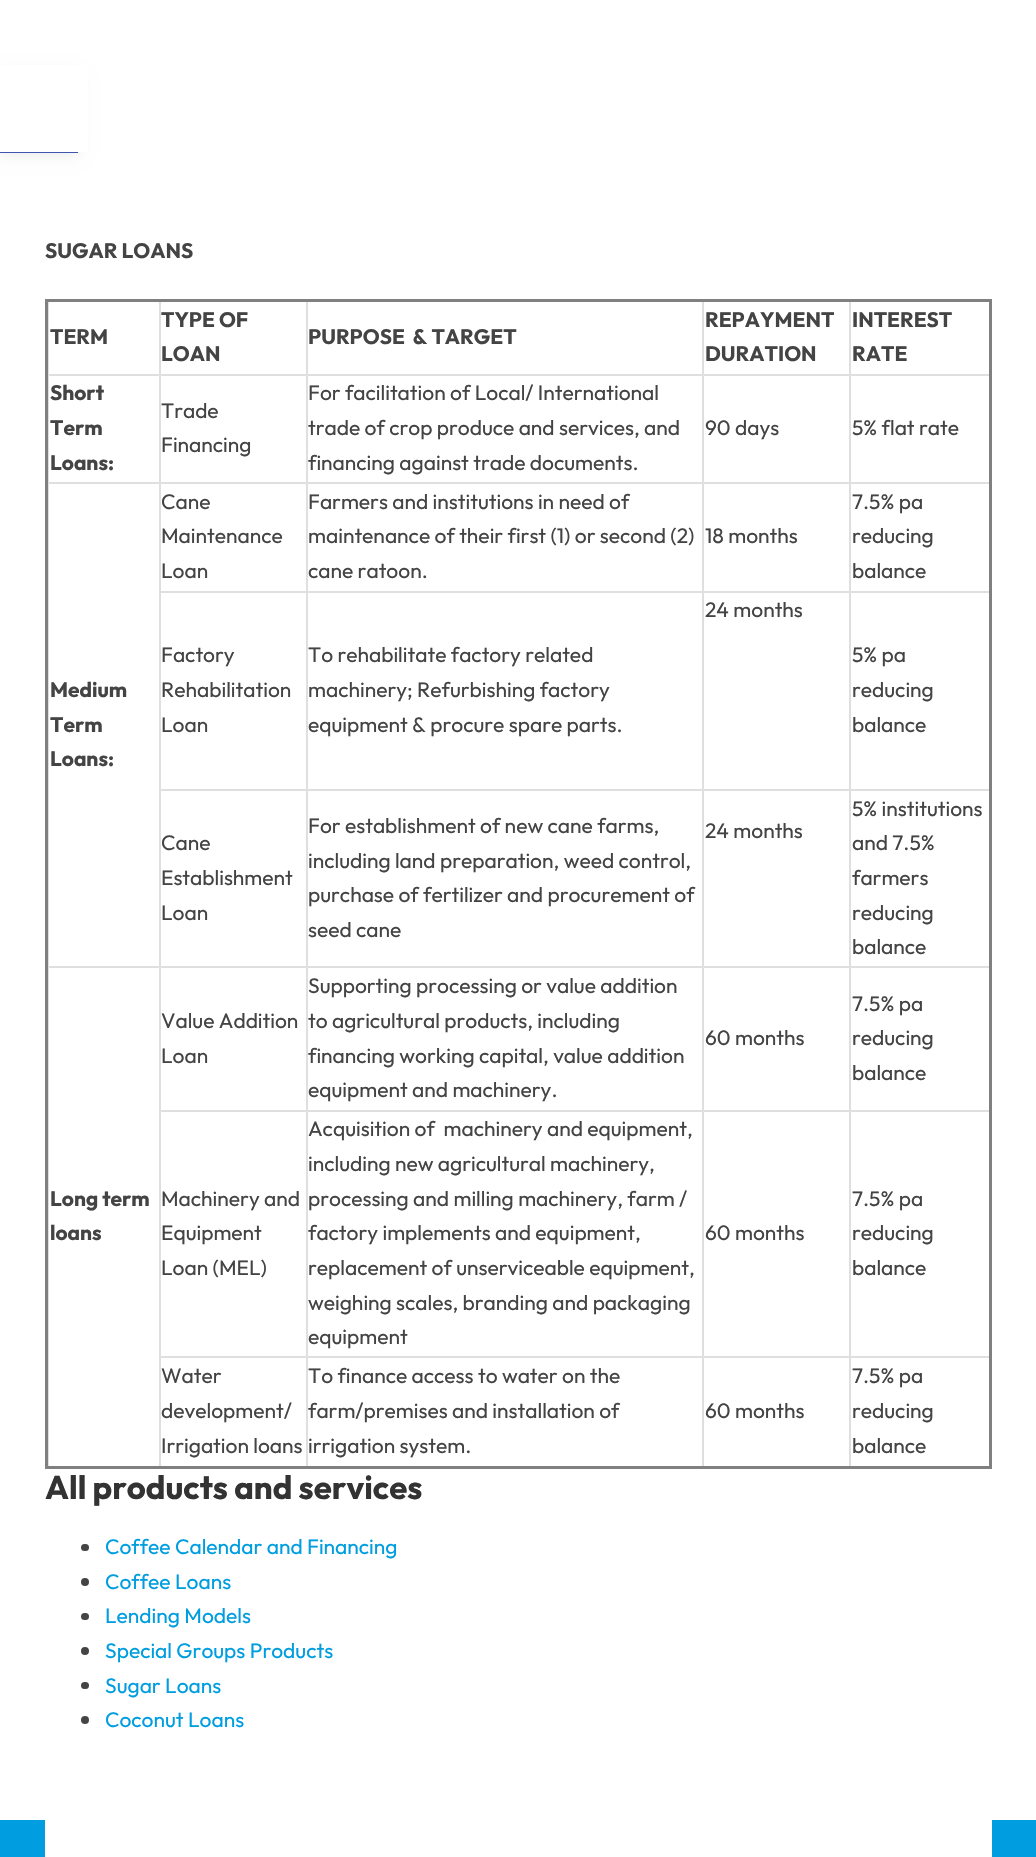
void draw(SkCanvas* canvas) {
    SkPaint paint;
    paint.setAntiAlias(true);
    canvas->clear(0xFFFFFFFF);
    paint.setColor(0x1A000000);
    paint.setMaskFilter(SkMaskFilter::MakeBlur(kNormal_SkBlurStyle, 7.5f));
    canvas->drawRect(SkRect::MakeXYWH(0, 75, 78, 78), paint);
    paint.setMaskFilter(nullptr);
    paint.setColor(0xFF4054B2);
    canvas->drawRect(SkRect::MakeXYWH(0, 152, 78, 1), paint);
    paint.setColor(0xFFFFFFFF);
    canvas->drawRect(SkRect::MakeXYWH(0, 65, 88, 87), paint);
    SkFont font1(fontMgr->matchFamilyStyle("Outfit", SkFontStyle::Bold()), 21);
    font1.setSubpixel(true);
    paint.setColor(0xFF444444);
    canvas->drawString("SUGAR LOANS", 45, 258, font1, paint);
    paint.setColor(0xFFE0DEDE);
    canvas->drawRect(SkRect::MakeXYWH(849, 374, 143, 2), paint);
    canvas->drawRect(SkRect::MakeXYWH(849, 482, 143, 2), paint);
    canvas->drawRect(SkRect::MakeXYWH(849, 591, 143, 2), paint);
    canvas->drawRect(SkRect::MakeXYWH(849, 789, 143, 2), paint);
    canvas->drawRect(SkRect::MakeXYWH(849, 966, 143, 2), paint);
    canvas->drawRect(SkRect::MakeXYWH(849, 1110, 143, 2), paint);
    canvas->drawRect(SkRect::MakeXYWH(849, 1356, 143, 2), paint);
    canvas->drawRect(SkRect::MakeXYWH(849, 1356, 2, 111), paint);
    canvas->drawRect(SkRect::MakeXYWH(702, 1356, 149, 2), paint);
    canvas->drawRect(SkRect::MakeXYWH(849, 1110, 2, 248), paint);
    canvas->drawRect(SkRect::MakeXYWH(702, 1110, 149, 2), paint);
    canvas->drawRect(SkRect::MakeXYWH(849, 966, 2, 146), paint);
    canvas->drawRect(SkRect::MakeXYWH(702, 966, 149, 2), paint);
    canvas->drawRect(SkRect::MakeXYWH(849, 789, 2, 179), paint);
    canvas->drawRect(SkRect::MakeXYWH(702, 789, 149, 2), paint);
    canvas->drawRect(SkRect::MakeXYWH(849, 591, 2, 200), paint);
    canvas->drawRect(SkRect::MakeXYWH(702, 591, 149, 2), paint);
    canvas->drawRect(SkRect::MakeXYWH(849, 482, 2, 111), paint);
    canvas->drawRect(SkRect::MakeXYWH(702, 482, 149, 2), paint);
    canvas->drawRect(SkRect::MakeXYWH(849, 374, 2, 109), paint);
    canvas->drawRect(SkRect::MakeXYWH(702, 374, 149, 2), paint);
    canvas->drawRect(SkRect::MakeXYWH(702, 1356, 2, 111), paint);
    canvas->drawRect(SkRect::MakeXYWH(306, 1356, 398, 2), paint);
    canvas->drawRect(SkRect::MakeXYWH(702, 1110, 2, 248), paint);
    canvas->drawRect(SkRect::MakeXYWH(306, 1110, 398, 2), paint);
    canvas->drawRect(SkRect::MakeXYWH(702, 966, 2, 146), paint);
    canvas->drawRect(SkRect::MakeXYWH(306, 966, 398, 2), paint);
    canvas->drawRect(SkRect::MakeXYWH(702, 789, 2, 179), paint);
    canvas->drawRect(SkRect::MakeXYWH(306, 789, 398, 2), paint);
    canvas->drawRect(SkRect::MakeXYWH(702, 591, 2, 200), paint);
    canvas->drawRect(SkRect::MakeXYWH(306, 591, 398, 2), paint);
    canvas->drawRect(SkRect::MakeXYWH(702, 482, 2, 111), paint);
    canvas->drawRect(SkRect::MakeXYWH(306, 482, 398, 2), paint);
    canvas->drawRect(SkRect::MakeXYWH(702, 374, 2, 109), paint);
    canvas->drawRect(SkRect::MakeXYWH(306, 374, 398, 2), paint);
    canvas->drawRect(SkRect::MakeXYWH(306, 1356, 2, 111), paint);
    canvas->drawRect(SkRect::MakeXYWH(159, 1356, 149, 2), paint);
    canvas->drawRect(SkRect::MakeXYWH(306, 1110, 2, 248), paint);
    canvas->drawRect(SkRect::MakeXYWH(159, 1110, 149, 2), paint);
    canvas->drawRect(SkRect::MakeXYWH(306, 966, 2, 146), paint);
    canvas->drawRect(SkRect::MakeXYWH(159, 966, 149, 2), paint);
    canvas->drawRect(SkRect::MakeXYWH(306, 789, 2, 179), paint);
    canvas->drawRect(SkRect::MakeXYWH(159, 789, 149, 2), paint);
    canvas->drawRect(SkRect::MakeXYWH(306, 591, 2, 200), paint);
    canvas->drawRect(SkRect::MakeXYWH(159, 591, 149, 2), paint);
    canvas->drawRect(SkRect::MakeXYWH(306, 482, 2, 111), paint);
    canvas->drawRect(SkRect::MakeXYWH(159, 482, 149, 2), paint);
    canvas->drawRect(SkRect::MakeXYWH(306, 374, 2, 109), paint);
    canvas->drawRect(SkRect::MakeXYWH(159, 374, 149, 2), paint);
    canvas->drawRect(SkRect::MakeXYWH(159, 1356, 2, 111), paint);
    canvas->drawRect(SkRect::MakeXYWH(159, 1110, 2, 248), paint);
    canvas->drawRect(SkRect::MakeXYWH(159, 966, 2, 146), paint);
    canvas->drawRect(SkRect::MakeXYWH(47, 966, 114, 2), paint);
    canvas->drawRect(SkRect::MakeXYWH(159, 789, 2, 179), paint);
    canvas->drawRect(SkRect::MakeXYWH(159, 591, 2, 200), paint);
    canvas->drawRect(SkRect::MakeXYWH(159, 482, 2, 111), paint);
    canvas->drawRect(SkRect::MakeXYWH(47, 482, 114, 2), paint);
    canvas->drawRect(SkRect::MakeXYWH(159, 374, 2, 109), paint);
    canvas->drawRect(SkRect::MakeXYWH(47, 374, 114, 2), paint);
    canvas->drawRect(SkRect::MakeXYWH(159, 299, 2, 76), paint);
    canvas->drawRect(SkRect::MakeXYWH(306, 299, 2, 76), paint);
    canvas->drawRect(SkRect::MakeXYWH(702, 299, 2, 76), paint);
    canvas->drawRect(SkRect::MakeXYWH(849, 299, 2, 76), paint);
    canvas->drawRect(SkRect::MakeXYWH(48, 966, 1, 501), paint);
    canvas->drawRect(SkRect::MakeXYWH(48, 482, 1, 486), paint);
    canvas->drawRect(SkRect::MakeXYWH(48, 299, 1, 184), paint);
    paint.setColor(0xFF808080);
    canvas->drawRect(SkRect::MakeXYWH(45, 299, 947, 3), paint);
    canvas->drawRect(SkRect::MakeXYWH(989, 299, 3, 1170), paint);
    canvas->drawRect(SkRect::MakeXYWH(45, 1466, 947, 3), paint);
    canvas->drawRect(SkRect::MakeXYWH(45, 299, 3, 1170), paint);
    paint.setColor(0xFF444444);
    canvas->drawString("TERM", 50, 344, font1, paint);
    canvas->drawString("TYPE OF", 161, 327, font1, paint);
    canvas->drawString("LOAN", 161, 361, font1, paint);
    canvas->drawString("PURPOSE  & TARGET", 308, 344, font1, paint);
    canvas->drawString("REPAYMENT", 705, 327, font1, paint);
    canvas->drawString("DURATION", 705, 361, font1, paint);
    canvas->drawString("INTEREST", 852, 327, font1, paint);
    canvas->drawString("RATE", 852, 361, font1, paint);
    canvas->drawString("Short", 50, 400, font1, paint);
    canvas->drawString("Term", 50, 435, font1, paint);
    canvas->drawString("Loans:", 50, 470, font1, paint);
    SkFont font2(fontMgr->matchFamilyStyle("Outfit", SkFontStyle::Normal()), 21);
    font2.setSubpixel(true);
    canvas->drawString("Trade", 161, 418, font2, paint);
    canvas->drawString("Financing", 161, 452, font2, paint);
    canvas->drawString("For facilitation of Local/ International", 308, 400, font2, paint);
    canvas->drawString("trade of crop produce and services, and", 308, 435, font2, paint);
    canvas->drawString("financing against trade documents.", 308, 470, font2, paint);
    canvas->drawString("90 days", 705, 435, font2, paint);
    canvas->drawString("5% flat rate", 852, 435, font2, paint);
    canvas->drawString("Cane", 161, 509, font2, paint);
    canvas->drawString("Maintenance", 161, 543, font2, paint);
    canvas->drawString("Loan", 161, 578, font2, paint);
    canvas->drawString("Farmers and institutions in need of", 308, 509, font2, paint);
    canvas->drawString("maintenance of their first (1) or second (2)", 308, 543, font2, paint);
    canvas->drawString("cane ratoon.", 308, 578, font2, paint);
    canvas->drawString("18 months", 705, 543, font2, paint);
    canvas->drawString("7.5% pa", 852, 509, font2, paint);
    canvas->drawString("reducing", 852, 543, font2, paint);
    canvas->drawString("balance", 852, 578, font2, paint);
    canvas->drawString("Medium", 50, 697, font1, paint);
    canvas->drawString("Term", 50, 732, font1, paint);
    canvas->drawString("Loans:", 50, 766, font1, paint);
    canvas->drawString("24 months", 705, 617, font2, paint);
    canvas->drawString("Factory", 161, 662, font2, paint);
    canvas->drawString("Rehabilitation", 161, 697, font2, paint);
    canvas->drawString("Loan", 161, 732, font2, paint);
    canvas->drawString("To rehabilitate factory related", 308, 662, font2, paint);
    canvas->drawString("machinery; Refurbishing factory", 308, 697, font2, paint);
    canvas->drawString("equipment & procure spare parts.", 308, 732, font2, paint);
    canvas->drawString("5% pa", 852, 662, font2, paint);
    canvas->drawString("reducing", 852, 697, font2, paint);
    canvas->drawString("balance", 852, 732, font2, paint);
    canvas->drawString("For establishment of new cane farms,", 308, 833, font2, paint);
    canvas->drawString("including land preparation, weed control,", 308, 868, font2, paint);
    canvas->drawString("purchase of fertilizer and procurement of", 308, 902, font2, paint);
    canvas->drawString("seed cane", 308, 937, font2, paint);
    canvas->drawString("24 months", 705, 838, font2, paint);
    canvas->drawString("5% institutions", 852, 816, font2, paint);
    canvas->drawString("and 7.5%", 852, 850, font2, paint);
    canvas->drawString("farmers", 852, 885, font2, paint);
    canvas->drawString("reducing", 852, 920, font2, paint);
    canvas->drawString("balance", 852, 954, font2, paint);
    canvas->drawString("Cane", 161, 850, font2, paint);
    canvas->drawString("Establishment", 161, 885, font2, paint);
    canvas->drawString("Loan", 161, 920, font2, paint);
    canvas->drawString("Value Addition", 161, 1028, font2, paint);
    canvas->drawString("Loan", 161, 1063, font2, paint);
    canvas->drawString("Supporting processing or value addition", 308, 993, font2, paint);
    canvas->drawString("to agricultural products, including", 308, 1028, font2, paint);
    canvas->drawString("financing working capital, value addition", 308, 1063, font2, paint);
    canvas->drawString("equipment and machinery.", 308, 1097, font2, paint);
    canvas->drawString("60 months", 705, 1045, font2, paint);
    canvas->drawString("7.5% pa", 852, 1011, font2, paint);
    canvas->drawString("reducing", 852, 1045, font2, paint);
    canvas->drawString("balance", 852, 1080, font2, paint);
    canvas->drawString("Long term", 50, 1206, font1, paint);
    canvas->drawString("loans", 50, 1240, font1, paint);
    canvas->drawString("Machinery and", 161, 1206, font2, paint);
    canvas->drawString("Equipment", 161, 1240, font2, paint);
    canvas->drawString("Loan (MEL)", 161, 1275, font2, paint);
    canvas->drawString("Acquisition of  machinery and equipment,", 308, 1136, font2, paint);
    canvas->drawString("including new agricultural machinery,", 308, 1171, font2, paint);
    canvas->drawString("processing and milling machinery, farm /", 308, 1206, font2, paint);
    canvas->drawString("factory implements and equipment,", 308, 1240, font2, paint);
    canvas->drawString("replacement of unserviceable equipment,", 308, 1275, font2, paint);
    canvas->drawString("weighing scales, branding and packaging", 308, 1310, font2, paint);
    canvas->drawString("equipment", 308, 1344, font2, paint);
    canvas->drawString("60 months", 705, 1240, font2, paint);
    canvas->drawString("7.5% pa", 852, 1206, font2, paint);
    canvas->drawString("reducing", 852, 1240, font2, paint);
    canvas->drawString("balance", 852, 1275, font2, paint);
    canvas->drawString("Water", 161, 1383, font2, paint);
    canvas->drawString("development/", 161, 1418, font2, paint);
    canvas->drawString("Irrigation loans", 161, 1453, font2, paint);
    canvas->drawString("To finance access to water on the", 308, 1383, font2, paint);
    canvas->drawString("farm/premises and installation of", 308, 1418, font2, paint);
    canvas->drawString("irrigation system.", 308, 1453, font2, paint);
    canvas->drawString("60 months", 705, 1418, font2, paint);
    canvas->drawString("7.5% pa", 852, 1383, font2, paint);
    canvas->drawString("reducing", 852, 1418, font2, paint);
    canvas->drawString("balance", 852, 1453, font2, paint);
    SkFont font3(fontMgr->matchFamilyStyle("Outfit", SkFontStyle::Bold()), 33);
    font3.setSubpixel(true);
    paint.setColor(0xFF333333);
    canvas->drawString("All products and services", 45, 1499, font3, paint);
    paint.setColor(0xFF444444);
    canvas->drawRoundRect(SkRect::MakeXYWH(81, 1544, 8, 7), 3.5f, 3.5f, paint);
    paint.setColor(0xFF009EE0);
    canvas->drawString("Coffee Calendar and Financing", 105, 1554, font2, paint);
    paint.setColor(0xFF444444);
    canvas->drawCircle(85, 1582, 4, paint);
    paint.setColor(0xFF009EE0);
    canvas->drawString("Coffee Loans", 105, 1589, font2, paint);
    paint.setColor(0xFF444444);
    canvas->drawRoundRect(SkRect::MakeXYWH(81, 1613, 8, 7), 3.5f, 3.5f, paint);
    paint.setColor(0xFF009EE0);
    canvas->drawString("Lending Models", 105, 1623, font2, paint);
    paint.setColor(0xFF444444);
    canvas->drawCircle(85, 1651, 4, paint);
    paint.setColor(0xFF009EE0);
    canvas->drawString("Special Groups Products", 105, 1658, font2, paint);
    paint.setColor(0xFF444444);
    canvas->drawRoundRect(SkRect::MakeXYWH(81, 1682, 8, 7), 3.5f, 3.5f, paint);
    paint.setColor(0xFF009EE0);
    canvas->drawString("Sugar Loans", 105, 1693, font2, paint);
    paint.setColor(0xFF444444);
    canvas->drawCircle(85, 1720, 4, paint);
    paint.setColor(0xFF009EE0);
    canvas->drawString("Coconut Loans", 105, 1727, font2, paint);
    canvas->drawRect(SkRect::MakeXYWH(0, 1820, 1036, 37), paint);
    paint.setColor(0xFFFFFFFF);
    canvas->drawRect(SkRect::MakeXYWH(45, 1820, 947, 37), paint);
}
